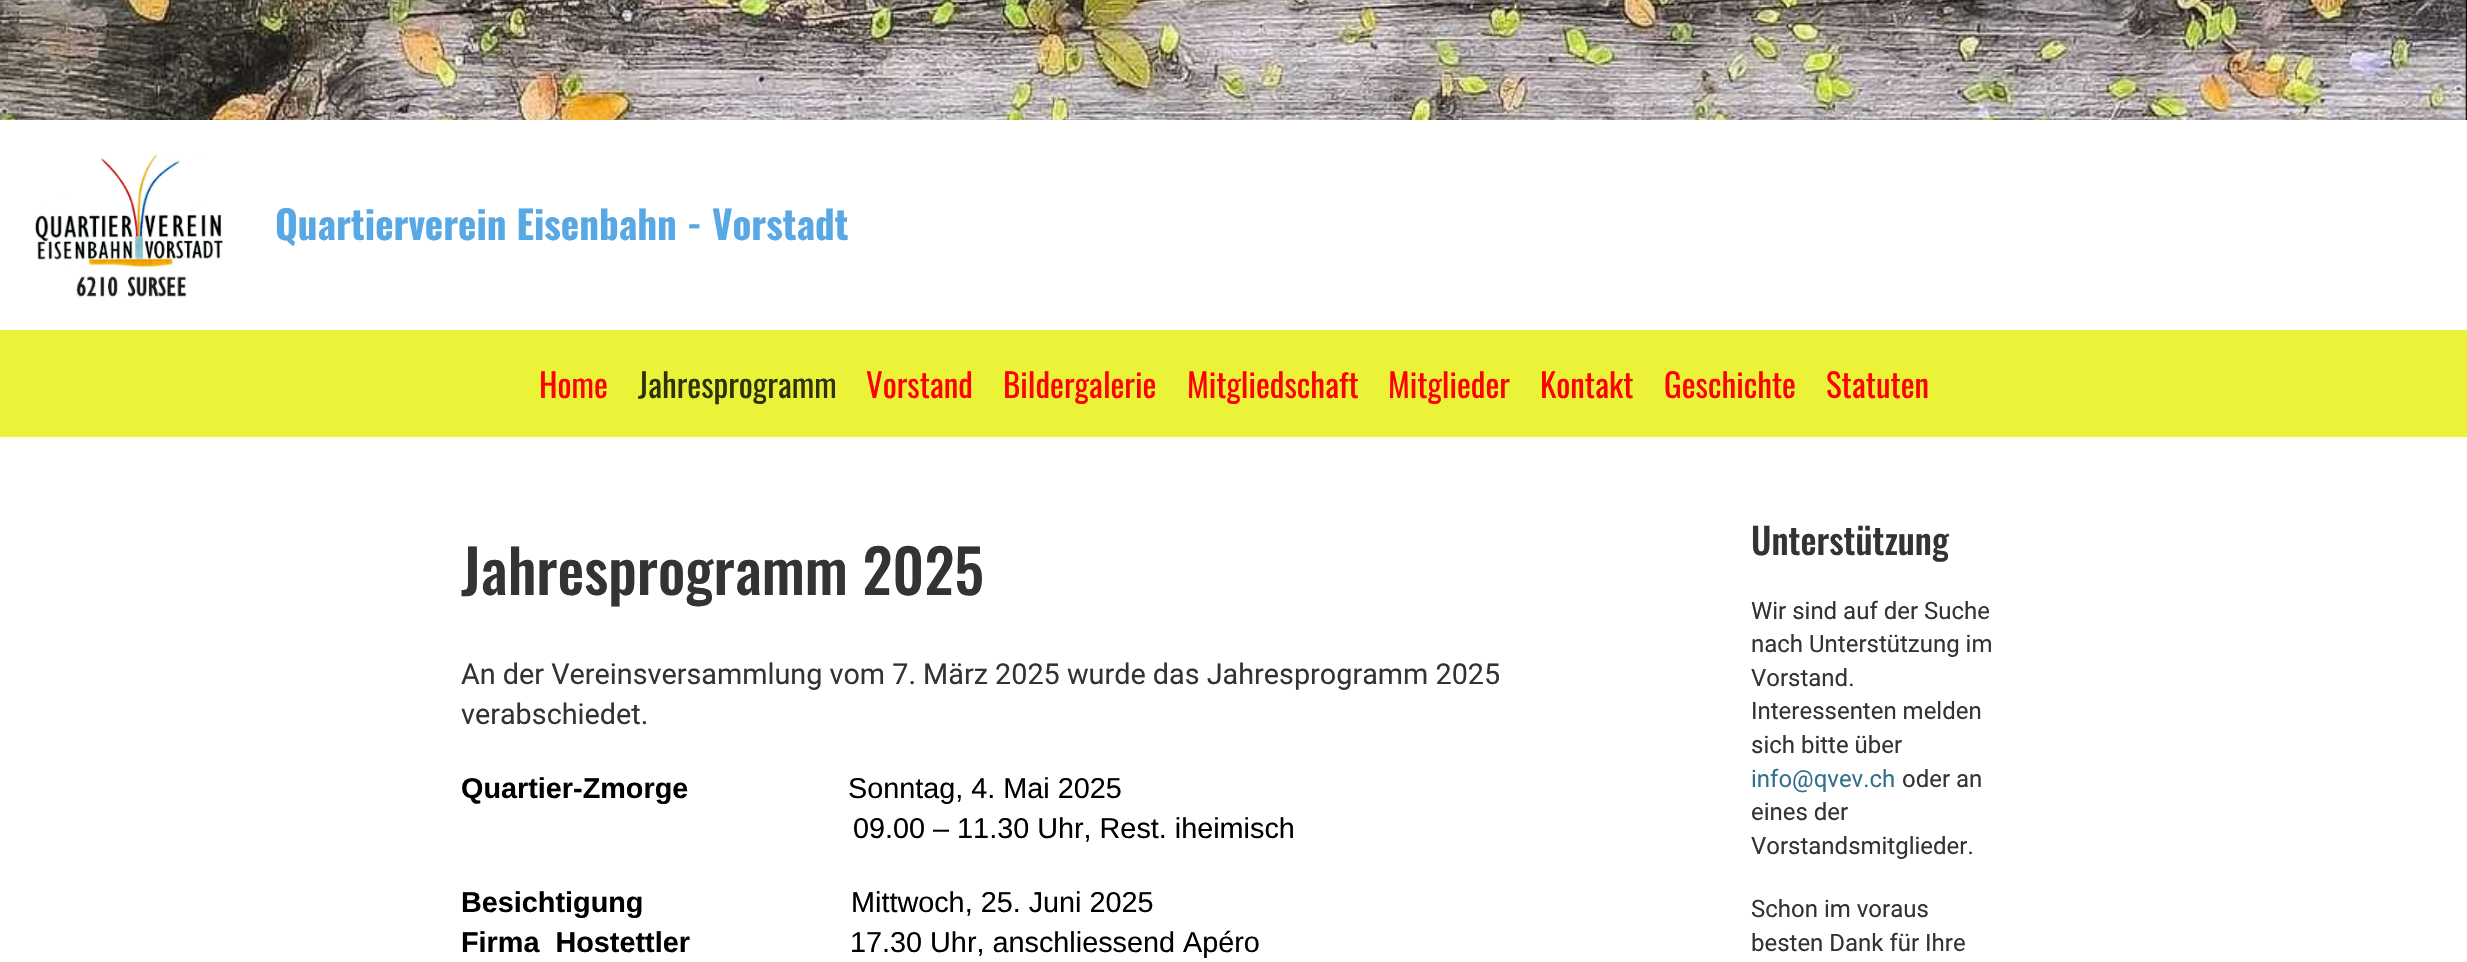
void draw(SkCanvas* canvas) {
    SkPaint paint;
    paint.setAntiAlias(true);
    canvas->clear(0xFFFFFFFF);
    canvas->drawImageRect(SkImages::DeferredFromEncodedData(SkData::MakeFromFileName("img1.png")), SkRect::MakeXYWH(0, 0, 2467, 120), SkSamplingOptions());
    canvas->drawImageRect(SkImages::DeferredFromEncodedData(SkData::MakeFromFileName("img2.png")), SkRect::MakeXYWH(34, 154, 189, 144), SkSamplingOptions());
    SkFont font1(fontMgr->matchFamilyStyle("Oswald", SkFontStyle::Bold()), 39);
    font1.setSubpixel(true);
    paint.setColor(0xFF59A8E6);
    canvas->drawString("Quartierverein Eisenbahn - Vorstadt", 275, 240, font1, paint);
    paint.setColor(0xFFEBF339);
    canvas->drawRect(SkRect::MakeXYWH(0, 330, 2467, 107), paint);
    SkFont font2(fontMgr->matchFamilyStyle("Oswald", SkFontStyle::Normal()), 33);
    font2.setSubpixel(true);
    paint.setColor(0xFFFF0000);
    canvas->drawString("Home", 539, 398, font2, paint);
    paint.setColor(0xFF2F310B);
    canvas->drawString("Jahresprogramm", 638, 398, font2, paint);
    paint.setColor(0xFFFF0000);
    canvas->drawString("Vorstand", 866, 398, font2, paint);
    canvas->drawString("Bildergalerie", 1003, 398, font2, paint);
    canvas->drawString("Mitgliedschaft", 1187, 398, font2, paint);
    canvas->drawString("Mitglieder", 1388, 398, font2, paint);
    canvas->drawString("Kontakt", 1540, 398, font2, paint);
    canvas->drawString("Geschichte", 1664, 398, font2, paint);
    canvas->drawString("Statuten", 1826, 398, font2, paint);
    SkFont font3(fontMgr->matchFamilyStyle("Oswald", SkFontStyle(500, SkFontStyle::kNormal_Width, SkFontStyle::kUpright_Slant)), 60);
    font3.setSubpixel(true);
    paint.setColor(0xFF333333);
    canvas->drawString("Jahresprogramm 2025", 461, 595, font3, paint);
    SkFont font4(fontMgr->matchFamilyStyle("Roboto", SkFontStyle::Normal()), 28.8f);
    font4.setSubpixel(true);
    canvas->drawString("An der Vereinsversammlung vom 7. März 2025 wurde das Jahresprogramm 2025", 461, 684, font4, paint);
    canvas->drawString("verabschiedet.", 461, 724, font4, paint);
    SkFont font5(fontMgr->matchFamilyStyle("Liberation Sans", SkFontStyle::Bold()), 28.8f);
    font5.setSubpixel(true);
    paint.setColor(0xFF000000);
    canvas->drawString("Quartier-Zmorge", 461, 798, font5, paint);
    SkFont font6(fontMgr->matchFamilyStyle("Liberation Sans", SkFontStyle::Normal()), 28.8f);
    font6.setSubpixel(true);
    canvas->drawString("Sonntag, 4. Mai 2025", 848, 798, font6, paint);
    canvas->drawString("09.00 – 11.30 Uhr, Rest. iheimisch", 853, 838, font6, paint);
    canvas->drawString("Besichtigung", 461, 912, font5, paint);
    canvas->drawString("Mittwoch, 25. Juni 2025", 851, 912, font6, paint);
    canvas->drawString("Firma  Hostettler", 461, 952, font5, paint);
    canvas->drawString("17.30 Uhr, anschliessend Apéro", 850, 952, font6, paint);
    SkFont font7(fontMgr->matchFamilyStyle("Oswald", SkFontStyle(500, SkFontStyle::kNormal_Width, SkFontStyle::kUpright_Slant)), 36);
    font7.setSubpixel(true);
    paint.setColor(0xFF333333);
    canvas->drawString("Unterstützung", 1751, 555, font7, paint);
    SkFont font8(fontMgr->matchFamilyStyle("Roboto", SkFontStyle::Normal()), 24);
    font8.setSubpixel(true);
    canvas->drawString("Wir sind auf der Suche", 1751, 619, font8, paint);
    canvas->drawString("nach Unterstützung im", 1751, 652, font8, paint);
    canvas->drawString("Vorstand.", 1751, 686, font8, paint);
    canvas->drawString("Interessenten melden", 1751, 719, font8, paint);
    canvas->drawString("sich bitte über", 1751, 753, font8, paint);
    paint.setColor(0xFF33708C);
    canvas->drawString("info@qvev.ch", 1751, 787, font8, paint);
    paint.setColor(0xFF333333);
    canvas->drawString("oder an", 1902, 787, font8, paint);
    canvas->drawString("eines der", 1751, 820, font8, paint);
    canvas->drawString("Vorstandsmitglieder.", 1751, 854, font8, paint);
    canvas->drawString("Schon im voraus", 1751, 917, font8, paint);
    canvas->drawString("besten Dank für Ihre", 1751, 951, font8, paint);
}
